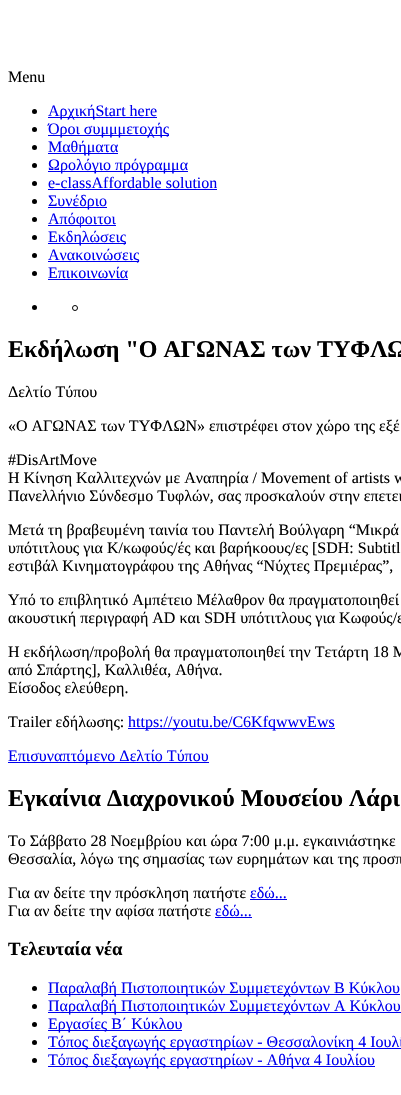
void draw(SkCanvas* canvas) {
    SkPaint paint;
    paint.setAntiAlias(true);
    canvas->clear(0xFFFFFFFF);
    SkFont font1(fontMgr->matchFamilyStyle("Liberation Serif", SkFontStyle::Normal()), 16);
    font1.setSubpixel(true);
    paint.setColor(0xFF000000);
    canvas->drawString("Menu", 8, 82, font1, paint);
    canvas->drawCircle(34.5f, 111.5f, 2.5f, paint);
    paint.setColor(0xFF0000EE);
    canvas->drawRect(SkRect::MakeXYWH(48, 117, 109, 1), paint);
    canvas->drawString("ΑρχικήStart here", 48, 116, font1, paint);
    paint.setColor(0xFF000000);
    canvas->drawCircle(34.5f, 129.5f, 2.5f, paint);
    paint.setColor(0xFF0000EE);
    canvas->drawRect(SkRect::MakeXYWH(48, 135, 121, 1), paint);
    canvas->drawString("Όροι συμμμετοχής", 48, 134, font1, paint);
    paint.setColor(0xFF000000);
    canvas->drawCircle(34.5f, 147.5f, 2.5f, paint);
    paint.setColor(0xFF0000EE);
    canvas->drawRect(SkRect::MakeXYWH(48, 153, 70, 1), paint);
    canvas->drawString("Μαθήματα", 48, 152, font1, paint);
    paint.setColor(0xFF000000);
    canvas->drawCircle(34.5f, 165.5f, 2.5f, paint);
    paint.setColor(0xFF0000EE);
    canvas->drawRect(SkRect::MakeXYWH(48, 171, 140, 1), paint);
    canvas->drawString("Ωρολόγιο πρόγραμμα", 48, 170, font1, paint);
    paint.setColor(0xFF000000);
    canvas->drawCircle(34.5f, 183.5f, 2.5f, paint);
    paint.setColor(0xFF0000EE);
    canvas->drawString("e-classAffordable solution", 48, 188, font1, paint);
    canvas->drawRect(SkRect::MakeXYWH(48, 189, 169, 1), paint);
    paint.setColor(0xFF000000);
    canvas->drawCircle(34.5f, 201.5f, 2.5f, paint);
    paint.setColor(0xFF0000EE);
    canvas->drawRect(SkRect::MakeXYWH(48, 207, 59, 1), paint);
    canvas->drawString("Συνέδριο", 48, 206, font1, paint);
    paint.setColor(0xFF000000);
    canvas->drawCircle(34.5f, 219.5f, 2.5f, paint);
    paint.setColor(0xFF0000EE);
    canvas->drawRect(SkRect::MakeXYWH(48, 225, 68, 1), paint);
    canvas->drawString("Απόφοιτοι", 48, 224, font1, paint);
    paint.setColor(0xFF000000);
    canvas->drawCircle(34.5f, 237.5f, 2.5f, paint);
    paint.setColor(0xFF0000EE);
    canvas->drawRect(SkRect::MakeXYWH(48, 243, 78, 1), paint);
    canvas->drawString("Εκδηλώσεις", 48, 242, font1, paint);
    paint.setColor(0xFF000000);
    canvas->drawCircle(34.5f, 255.5f, 2.5f, paint);
    paint.setColor(0xFF0000EE);
    canvas->drawRect(SkRect::MakeXYWH(48, 261, 91, 1), paint);
    canvas->drawString("Ανακοινώσεις", 48, 260, font1, paint);
    paint.setColor(0xFF000000);
    canvas->drawCircle(34.5f, 273.5f, 2.5f, paint);
    paint.setColor(0xFF0000EE);
    canvas->drawString("Επικοινωνία", 48, 278, font1, paint);
    canvas->drawRect(SkRect::MakeXYWH(48, 279, 80, 1), paint);
    paint.setColor(0xFF000000);
    canvas->drawCircle(34.5f, 307.5f, 2.5f, paint);
    paint.setStyle(SkPaint::kStroke_Style);
    paint.setStrokeWidth(1);
    canvas->drawCircle(75, 308, 2.5f, paint);
    SkFont font2(fontMgr->matchFamilyStyle("Liberation Serif", SkFontStyle::Bold()), 24);
    font2.setSubpixel(true);
    paint.setStyle(SkPaint::kFill_Style);
    canvas->drawString("Εκδήλωση \"Ο ΑΓΩΝΑΣ των ΤΥΦΛΩ", 8, 357, font2, paint);
    canvas->drawString("Δελτίο Τύπου", 8, 397, font1, paint);
    canvas->drawString("«Ο ΑΓΩΝΑΣ των ΤΥΦΛΩΝ» επιστρέφει στον χώρο της εξέ", 8, 431, font1, paint);
    canvas->drawString("#DisArtMove", 8, 465, font1, paint);
    canvas->drawString("Η Κίνηση Καλλιτεχνών με Αναπηρία / Movement of artists w", 8, 483, font1, paint);
    canvas->drawString("Πανελλήνιο Σύνδεσμο Τυφλών, σας προσκαλούν στην επετει", 8, 501, font1, paint);
    canvas->drawString("Μετά τη βραβευμένη ταινία του Παντελή Βούλγαρη “Μικρά", 8, 535, font1, paint);
    canvas->drawString("υπότιτλους για K/κωφούς/ές και βαρήκοους/ες [SDH: Subtitl", 8, 553, font1, paint);
    canvas->drawString("εστιβάλ Κινηματογράφου της Αθήνας “Νύχτες Πρεμιέρας”,", 8, 571, font1, paint);
    canvas->drawString("Υπό το επιβλητικό Αμπέτειο Μέλαθρον θα πραγματοποιηθεί", 8, 605, font1, paint);
    canvas->drawString("ακουστική περιγραφή AD και SDH υπότιτλους για Κωφούς/ε", 8, 623, font1, paint);
    canvas->drawString("Η εκδήλωση/προβολή θα πραγματοποιηθεί την Τετάρτη 18 Μ", 8, 657, font1, paint);
    canvas->drawString("από Σπάρτης], Καλλιθέα, Αθήνα.", 8, 675, font1, paint);
    canvas->drawString("Είσοδος ελεύθερη.", 8, 693, font1, paint);
    canvas->drawString("Trailer εδήλωσης:", 8, 727, font1, paint);
    paint.setColor(0xFF0000EE);
    canvas->drawRect(SkRect::MakeXYWH(128, 728, 207, 1), paint);
    canvas->drawString("https://youtu.be/C6KfqwwvEws", 128, 727, font1, paint);
    canvas->drawRect(SkRect::MakeXYWH(8, 762, 201, 1), paint);
    canvas->drawString("Επισυναπτόμενο Δελτίο Τύπου", 8, 761, font1, paint);
    paint.setColor(0xFF000000);
    canvas->drawString("Εγκαίνια Διαχρονικού Μουσείου Λάρι", 8, 806, font2, paint);
    canvas->drawString("Το Σάββατο 28 Νοεμβρίου και ώρα 7:00 μ.μ. εγκαινιάστηκε", 8, 846, font1, paint);
    canvas->drawString("Θεσσαλία, λόγω της σημασίας των ευρημάτων και της προσπ", 8, 864, font1, paint);
    canvas->drawString("Για αν δείτε την πρόσκληση πατήστε", 8, 898, font1, paint);
    paint.setColor(0xFF0000EE);
    canvas->drawString("εδώ...", 250, 898, font1, paint);
    canvas->drawRect(SkRect::MakeXYWH(250, 899, 37, 1), paint);
    paint.setColor(0xFF000000);
    canvas->drawString("Για αν δείτε την αφίσα πατήστε", 8, 916, font1, paint);
    paint.setColor(0xFF0000EE);
    canvas->drawString("εδώ...", 215, 916, font1, paint);
    canvas->drawRect(SkRect::MakeXYWH(215, 917, 37, 1), paint);
    SkFont font3(fontMgr->matchFamilyStyle("Liberation Serif", SkFontStyle::Bold()), 18.75f);
    font3.setSubpixel(true);
    paint.setColor(0xFF000000);
    canvas->drawString("Τελευταία νέα", 8, 955, font3, paint);
    canvas->drawCircle(34.5f, 988.5f, 2.5f, paint);
    paint.setColor(0xFF0000EE);
    canvas->drawRect(SkRect::MakeXYWH(48, 994, 352, 1), paint);
    canvas->drawString("Παραλαβή Πιστοποιητικών Συμμετεχόντων Β Κύκλου", 48, 993, font1, paint);
    paint.setColor(0xFF000000);
    canvas->drawCircle(34.5f, 1006.5f, 2.5f, paint);
    paint.setColor(0xFF0000EE);
    canvas->drawRect(SkRect::MakeXYWH(48, 1012, 353, 1), paint);
    canvas->drawString("Παραλαβή Πιστοποιητικών Συμμετεχόντων Α Κύκλου", 48, 1011, font1, paint);
    paint.setColor(0xFF000000);
    canvas->drawCircle(34.5f, 1024.5f, 2.5f, paint);
    paint.setColor(0xFF0000EE);
    canvas->drawRect(SkRect::MakeXYWH(48, 1030, 134, 1), paint);
    canvas->drawString("Εργασίες Β΄ Κύκλου", 48, 1029, font1, paint);
    paint.setColor(0xFF000000);
    canvas->drawCircle(34.5f, 1042.5f, 2.5f, paint);
    paint.setColor(0xFF0000EE);
    canvas->drawRect(SkRect::MakeXYWH(48, 1048, 353, 1), paint);
    canvas->drawString("Τόπος διεξαγωγής εργαστηρίων - Θεσσαλονίκη 4 Ιουλί", 48, 1047, font1, paint);
    paint.setColor(0xFF000000);
    canvas->drawCircle(34.5f, 1060.5f, 2.5f, paint);
    paint.setColor(0xFF0000EE);
    canvas->drawRect(SkRect::MakeXYWH(48, 1066, 327, 1), paint);
    canvas->drawString("Τόπος διεξαγωγής εργαστηρίων - Αθήνα 4 Ιουλίου", 48, 1065, font1, paint);
}
